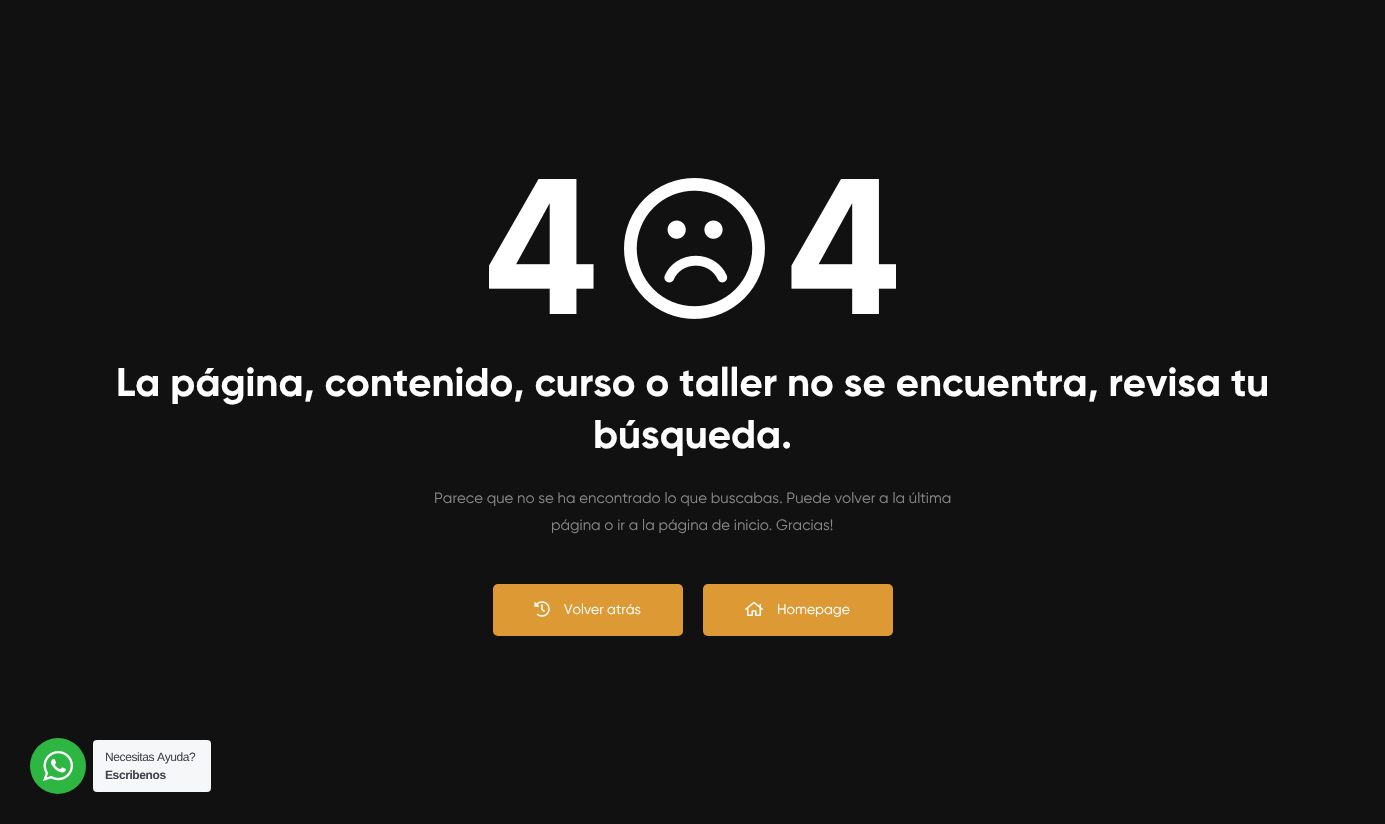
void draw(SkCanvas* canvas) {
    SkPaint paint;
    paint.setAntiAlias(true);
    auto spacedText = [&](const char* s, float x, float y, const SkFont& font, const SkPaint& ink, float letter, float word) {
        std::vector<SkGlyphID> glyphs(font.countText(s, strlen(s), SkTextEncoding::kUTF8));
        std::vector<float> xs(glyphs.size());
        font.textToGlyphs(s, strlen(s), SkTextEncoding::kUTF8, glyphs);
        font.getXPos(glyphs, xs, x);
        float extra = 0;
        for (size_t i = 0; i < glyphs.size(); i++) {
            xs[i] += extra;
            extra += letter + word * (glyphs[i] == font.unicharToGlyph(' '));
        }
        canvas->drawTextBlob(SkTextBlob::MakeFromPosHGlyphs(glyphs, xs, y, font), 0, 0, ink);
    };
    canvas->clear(0xFF111111);
    canvas->drawImageRect(SkImages::DeferredFromEncodedData(SkData::MakeFromFileName("img1.png")), SkRect::MakeXYWH(489, 178, 407, 141), SkSamplingOptions());
    SkFont font1(fontMgr->matchFamilyStyle("Gilroy", SkFontStyle::Bold()), 40);
    font1.setSubpixel(true);
    paint.setColor(0xFFFFFFFF);
    canvas->drawString("La página, contenido, curso o taller no se encuentra, revisa tu", 116, 396, font1, paint);
    canvas->drawString("búsqueda.", 593, 448, font1, paint);
    SkFont font2(fontMgr->matchFamilyStyle("Gilroy", SkFontStyle::Normal()), 15);
    font2.setSubpixel(true);
    paint.setColor(0xFF888888);
    canvas->drawString("Parece que no se ha encontrado lo que buscabas. Puede volver a la última", 434, 503, font2, paint);
    canvas->drawString("página o ir a la página de inicio. Gracias!", 551, 530, font2, paint);
    paint.setColor(0xFFDD9933);
    canvas->drawRoundRect(SkRect::MakeXYWH(493, 584, 190, 52), 5, 5, paint);
    canvas->drawImageRect(SkImages::DeferredFromEncodedData(SkData::MakeFromFileName("img2.png")), SkRect::MakeXYWH(534, 601, 16, 16), SkSamplingOptions());
    SkFont font3(fontMgr->matchFamilyStyle("Gilroy", SkFontStyle::Normal()), 14);
    font3.setSubpixel(true);
    paint.setColor(0xFFFFFFFF);
    canvas->drawString("Volver atrás", 564, 614, font3, paint);
    paint.setColor(0xFFDD9933);
    canvas->drawRoundRect(SkRect::MakeXYWH(703, 584, 190, 52), 5, 5, paint);
    canvas->drawImageRect(SkImages::DeferredFromEncodedData(SkData::MakeFromFileName("img3.png")), SkRect::MakeXYWH(745, 602, 18, 14), SkSamplingOptions());
    paint.setColor(0xFFFFFFFF);
    canvas->drawString("Homepage", 777, 614, font3, paint);
    paint.setColor(0xFF2DB742);
    canvas->drawCircle(58, 766, 28, paint);
    canvas->drawImageRect(SkImages::DeferredFromEncodedData(SkData::MakeFromFileName("img4.png")), SkRect::MakeXYWH(43, 751, 30, 30), SkSamplingOptions());
    paint.setColor(0xFFF5F7F9);
    canvas->drawRoundRect(SkRect::MakeXYWH(93, 740, 118, 52), 4, 4, paint);
    SkFont font4(fontMgr->matchFamilyStyle("Liberation Sans", SkFontStyle::Normal()), 12);
    font4.setSubpixel(true);
    paint.setColor(0xFF43474E);
    spacedText("Necesitas Ayuda?", 105, 761, font4, paint, -0.4f, 0);
    SkFont font5(fontMgr->matchFamilyStyle("Liberation Sans", SkFontStyle::Bold()), 12);
    font5.setSubpixel(true);
    spacedText("Escribenos", 105, 779, font5, paint, -0.4f, 0);
}
